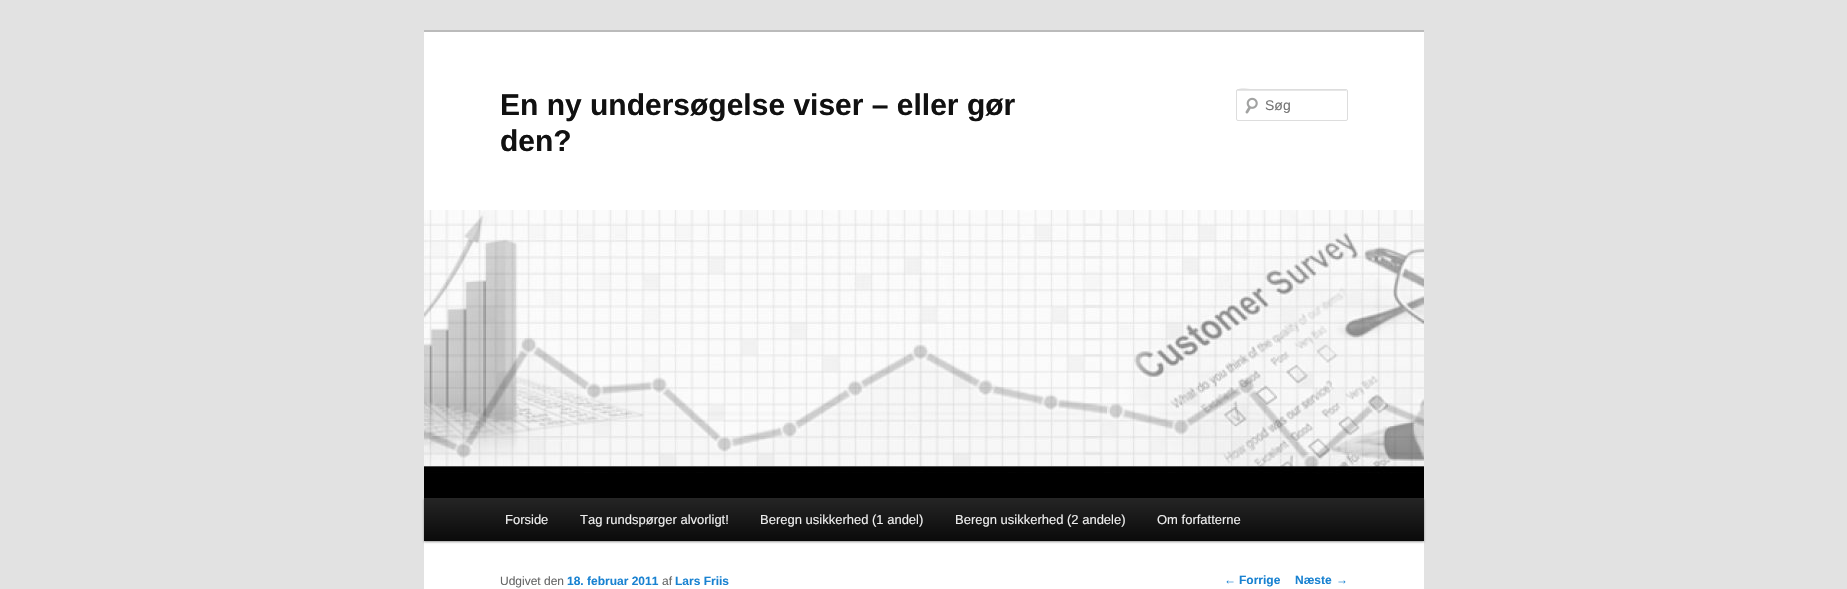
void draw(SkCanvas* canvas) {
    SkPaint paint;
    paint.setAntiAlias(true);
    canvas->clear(0xFFE2E2E2);
    paint.setColor(0xFFFFFFFF);
    canvas->drawRect(SkRect::MakeXYWH(424, 32, 1000, 557), paint);
    paint.setColor(0xFFBBBBBB);
    canvas->drawRect(SkRect::MakeXYWH(424, 30, 1000, 2), paint);
    SkFont font1(fontMgr->matchFamilyStyle("Liberation Sans", SkFontStyle::Bold()), 30);
    font1.setSubpixel(true);
    paint.setColor(0xFF111111);
    canvas->drawString("En ny undersøgelse viser – eller gør", 500, 115, font1, paint);
    canvas->drawString("den?", 500, 151, font1, paint);
    canvas->drawImageRect(SkImages::DeferredFromEncodedData(SkData::MakeFromFileName("img1.png")), SkRect::MakeXYWH(1245, 97, 13, 17), SkSamplingOptions());
    paint.setColor(0xFFE6E6E6);
    canvas->drawPath(SkPathBuilder().moveTo(1238, 91).lineTo(1347, 91).lineTo(1347, 92).lineTo(1346, 90).lineTo(1256, 90).cubicTo(1252, 90, 1237, 85, 1237, 92).cubicTo(1237, 91, 1237, 91, 1238, 91).close().detach(), paint);
    paint.setStyle(SkPaint::kStroke_Style);
    paint.setStrokeWidth(1);
    paint.setColor(0xFFDDDDDD);
    canvas->drawRoundRect(SkRect::MakeXYWH(1236.5f, 89.5f, 111, 31), 1.5f, 1.5f, paint);
    SkFont font2(fontMgr->matchFamilyStyle("Liberation Sans", SkFontStyle::Normal()), 14);
    font2.setSubpixel(true);
    paint.setStyle(SkPaint::kFill_Style);
    paint.setColor(0xFF757575);
    canvas->drawString("Søg", 1265, 110, font2, paint);
    paint.setColor(0x66000000);
    paint.setMaskFilter(SkMaskFilter::MakeBlur(kNormal_SkBlurStyle, 1));
    canvas->drawRect(SkRect::MakeXYWH(424, 499, 1000, 43), paint);
    paint.setMaskFilter(nullptr);
    canvas->drawImageRect(SkImages::DeferredFromEncodedData(SkData::MakeFromFileName("img2.png")), SkRect::MakeXYWH(424, 210, 1000, 288), SkSamplingOptions());
    {
        const SkColor colors[] = {0xFF252525, 0xFF0A0A0A};
        const float stops[] = {0, 1};
        const SkPoint ends[] = {{924, 498}, {924, 541}};
        paint.setShader(SkGradientShader::MakeLinear(ends, colors, stops, 2, SkTileMode::kClamp));
        paint.setAlpha(255);
    }
    canvas->drawRect(SkRect::MakeXYWH(424, 498, 1000, 43), paint);
    SkFont font3(fontMgr->matchFamilyStyle("Liberation Sans", SkFontStyle::Normal()), 13);
    font3.setSubpixel(true);
    paint.setShader(nullptr);
    paint.setColor(0xFFEEEEEE);
    canvas->drawString("Forside", 505, 524, font3, paint);
    canvas->drawString("Tag rundspørger alvorligt!", 580, 524, font3, paint);
    canvas->drawString("Beregn usikkerhed (1 andel)", 760, 524, font3, paint);
    canvas->drawString("Beregn usikkerhed (2 andele)", 955, 524, font3, paint);
    canvas->drawString("Om forfatterne", 1157, 524, font3, paint);
    SkFont font4(fontMgr->matchFamilyStyle("Liberation Sans", SkFontStyle::Normal()), 12);
    font4.setSubpixel(true);
    paint.setColor(0xFF666666);
    canvas->drawString("Udgivet den", 500, 585, font4, paint);
    SkFont font5(fontMgr->matchFamilyStyle("Liberation Sans", SkFontStyle::Bold()), 12);
    font5.setSubpixel(true);
    paint.setColor(0xFF1982D1);
    canvas->drawString("18. februar 2011", 567, 585, font5, paint);
    paint.setColor(0xFF666666);
    canvas->drawString("af", 662, 585, font4, paint);
    paint.setColor(0xFF1982D1);
    canvas->drawString("Lars Friis", 675, 585, font5, paint);
    canvas->drawString("←", 1224, 584, font4, paint);
    canvas->drawString("Forrige", 1239, 584, font5, paint);
    canvas->drawString("Næste", 1295, 584, font5, paint);
    canvas->drawString("→", 1336, 584, font4, paint);
}
